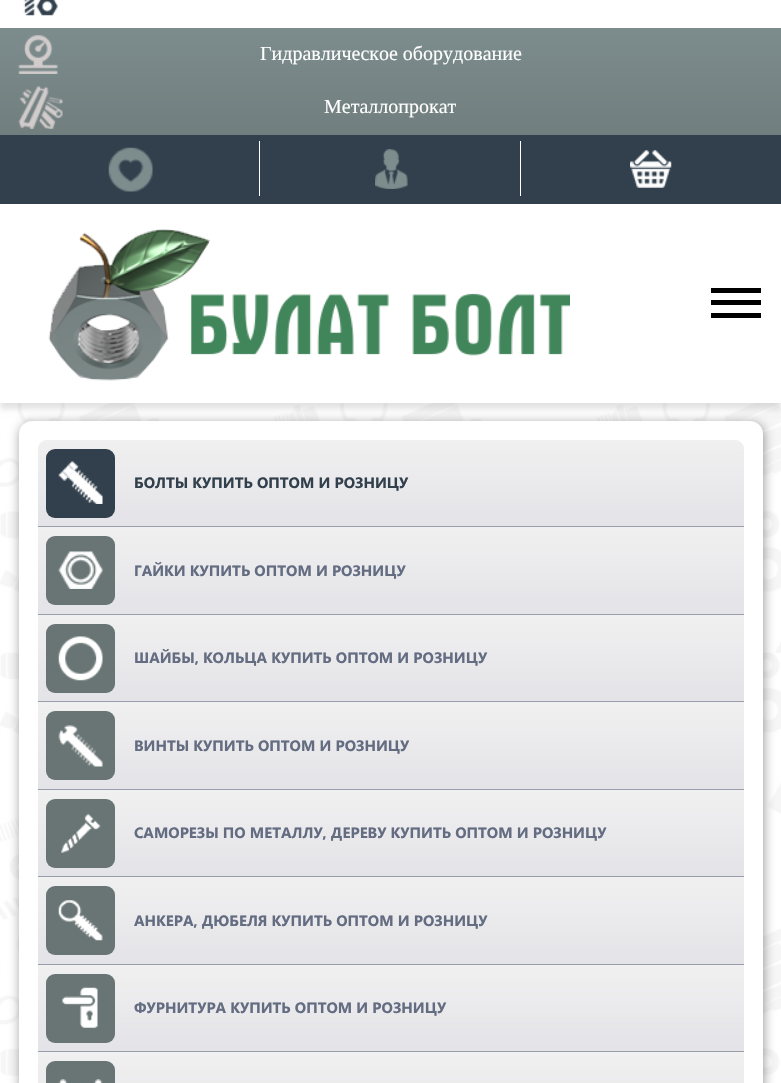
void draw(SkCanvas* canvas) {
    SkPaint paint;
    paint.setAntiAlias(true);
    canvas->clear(0xFFFFFFFF);
    canvas->drawImageRect(SkImages::DeferredFromEncodedData(SkData::MakeFromFileName("img1.png")), SkRect::MakeXYWH(0, 403, 781, 680), SkSamplingOptions());
    paint.setColor(0x1C000000);
    paint.setMaskFilter(SkMaskFilter::MakeBlur(kNormal_SkBlurStyle, 3));
    canvas->drawRect(SkRect::MakeXYWH(0, -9, 781, 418), paint);
    paint.setMaskFilter(nullptr);
    {
        const SkColor colors[] = {0xFF829394, 0xFF6A7575};
        const float stops[] = {0, 1};
        const SkPoint ends[] = {{391, -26}, {391, 204}};
        paint.setShader(SkGradientShader::MakeLinear(ends, colors, stops, 2, SkTileMode::kClamp));
        paint.setAlpha(255);
    }
    canvas->drawRect(SkRect::MakeXYWH(0, 28, 781, 107), paint);
    paint.setShader(nullptr);
    paint.setColor(0xFFFFFFFF);
    canvas->drawRect(SkRect::MakeXYWH(0, 0, 781, 28), paint);
    canvas->drawImageRect(SkImages::DeferredFromEncodedData(SkData::MakeFromFileName("img2.png")), SkRect::MakeXYWH(23, 0, 35, 16), SkSamplingOptions());
    canvas->drawImageRect(SkImages::DeferredFromEncodedData(SkData::MakeFromFileName("img3.png")), SkRect::MakeXYWH(18, 35, 40, 39), SkSamplingOptions());
    SkFont font1(fontMgr->matchFamilyStyle("Liberation Serif", SkFontStyle::Normal()), 20);
    font1.setSubpixel(true);
    canvas->drawString("Гидравлическое оборудование", 260, 60, font1, paint);
    canvas->drawImageRect(SkImages::DeferredFromEncodedData(SkData::MakeFromFileName("img4.png")), SkRect::MakeXYWH(18, 86, 45, 43), SkSamplingOptions());
    canvas->drawString("Металлопрокат", 324, 113, font1, paint);
    paint.setColor(0xFF31404C);
    canvas->drawRect(SkRect::MakeXYWH(0, 135, 781, 69), paint);
    canvas->drawImageRect(SkImages::DeferredFromEncodedData(SkData::MakeFromFileName("img5.png")), SkRect::MakeXYWH(108, 147, 45, 45), SkSamplingOptions());
    paint.setColor(0xFFFFFFFF);
    canvas->drawRect(SkRect::MakeXYWH(259, 141, 1, 55), paint);
    canvas->drawImageRect(SkImages::DeferredFromEncodedData(SkData::MakeFromFileName("img6.png")), SkRect::MakeXYWH(375, 149, 33, 40), SkSamplingOptions());
    canvas->drawRect(SkRect::MakeXYWH(520, 141, 1, 55), paint);
    canvas->drawImageRect(SkImages::DeferredFromEncodedData(SkData::MakeFromFileName("img7.png")), SkRect::MakeXYWH(630, 150, 42, 38), SkSamplingOptions());
    canvas->drawRect(SkRect::MakeXYWH(0, 204, 781, 199), paint);
    canvas->drawImageRect(SkImages::DeferredFromEncodedData(SkData::MakeFromFileName("img8.png")), SkRect::MakeXYWH(48, 229, 522, 152), SkSamplingOptions());
    paint.setColor(0xFF000000);
    canvas->drawRect(SkRect::MakeXYWH(711, 300, 50, 5), paint);
    canvas->drawRect(SkRect::MakeXYWH(711, 288, 50, 5), paint);
    canvas->drawRect(SkRect::MakeXYWH(711, 313, 50, 5), paint);
    paint.setColor(0x66000000);
    paint.setMaskFilter(SkMaskFilter::MakeBlur(kNormal_SkBlurStyle, 5.5f));
    canvas->drawRoundRect(SkRect::MakeXYWH(20, 423, 744, 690), 13, 13, paint);
    paint.setMaskFilter(nullptr);
    paint.setColor(0xFFFFFFFF);
    canvas->drawRoundRect(SkRect::MakeXYWH(19, 421, 744, 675), 13, 13, paint);
    {
        const SkColor colors[] = {0xFFF1F0F0, 0xFFE3E3E8};
        const float stops[] = {0, 1};
        const SkPoint ends[] = {{391, 440}, {391, 526}};
        paint.setShader(SkGradientShader::MakeLinear(ends, colors, stops, 2, SkTileMode::kClamp));
        paint.setAlpha(255);
    }
    canvas->drawPath(SkPathBuilder().moveTo(47, 440).lineTo(735, 440).cubicTo(740, 440, 744, 444, 744, 449).lineTo(744, 526).lineTo(38, 526).lineTo(38, 449).cubicTo(38, 444, 42, 440, 47, 440).close().detach(), paint);
    {
        const SkColor colors[] = {0xFFF1F0F0, 0xFFE3E3E8};
        const float stops[] = {0, 1};
        const SkPoint ends[] = {{391, 526}, {391, 613}};
        paint.setShader(SkGradientShader::MakeLinear(ends, colors, stops, 2, SkTileMode::kClamp));
        paint.setAlpha(255);
    }
    canvas->drawRect(SkRect::MakeXYWH(38, 527, 706, 1), paint);
    paint.setShader(nullptr);
    paint.setColor(0xFF999EAC);
    canvas->drawRect(SkRect::MakeXYWH(38, 526, 706, 1), paint);
    paint.setColor(0xFF31404C);
    canvas->drawRoundRect(SkRect::MakeXYWH(46, 449, 69, 69), 9, 9, paint);
    canvas->drawImageRect(SkImages::DeferredFromEncodedData(SkData::MakeFromFileName("img9.png")), SkRect::MakeXYWH(58, 461, 45, 43), SkSamplingOptions());
    SkFont font2(fontMgr->matchFamilyStyle("Segoe UI", SkFontStyle::Bold()), 15);
    font2.setSubpixel(true);
    canvas->drawString("БОЛТЫ КУПИТЬ ОПТОМ И РОЗНИЦУ", 134, 488, font2, paint);
    {
        const SkColor colors[] = {0xFFF1F0F0, 0xFFE3E3E8};
        const float stops[] = {0, 1};
        const SkPoint ends[] = {{391, 527}, {391, 614}};
        paint.setShader(SkGradientShader::MakeLinear(ends, colors, stops, 2, SkTileMode::kClamp));
        paint.setAlpha(255);
    }
    canvas->drawRect(SkRect::MakeXYWH(38, 528, 706, 86), paint);
    paint.setShader(nullptr);
    paint.setColor(0xFF999EAC);
    canvas->drawRect(SkRect::MakeXYWH(38, 614, 706, 1), paint);
    paint.setColor(0xFF697474);
    canvas->drawRoundRect(SkRect::MakeXYWH(46, 536, 69, 69), 9, 9, paint);
    canvas->drawImageRect(SkImages::DeferredFromEncodedData(SkData::MakeFromFileName("img10.png")), SkRect::MakeXYWH(58, 551, 45, 38), SkSamplingOptions());
    paint.setColor(0xFF636C81);
    canvas->drawString("ГАЙКИ КУПИТЬ ОПТОМ И РОЗНИЦУ", 134, 576, font2, paint);
    {
        const SkColor colors[] = {0xFFF1F0F0, 0xFFE3E3E8};
        const float stops[] = {0, 1};
        const SkPoint ends[] = {{391, 615}, {391, 701}};
        paint.setShader(SkGradientShader::MakeLinear(ends, colors, stops, 2, SkTileMode::kClamp));
        paint.setAlpha(255);
    }
    canvas->drawRect(SkRect::MakeXYWH(38, 615, 706, 86), paint);
    {
        const SkColor colors[] = {0xFFF1F0F0, 0xFFE3E3E8};
        const float stops[] = {0, 1};
        const SkPoint ends[] = {{391, 701}, {391, 788}};
        paint.setShader(SkGradientShader::MakeLinear(ends, colors, stops, 2, SkTileMode::kClamp));
        paint.setAlpha(255);
    }
    canvas->drawRect(SkRect::MakeXYWH(38, 702, 706, 1), paint);
    paint.setShader(nullptr);
    paint.setColor(0xFF999EAC);
    canvas->drawRect(SkRect::MakeXYWH(38, 701, 706, 1), paint);
    paint.setColor(0xFF697474);
    canvas->drawRoundRect(SkRect::MakeXYWH(46, 624, 69, 69), 9, 9, paint);
    canvas->drawImageRect(SkImages::DeferredFromEncodedData(SkData::MakeFromFileName("img11.png")), SkRect::MakeXYWH(58, 636, 45, 45), SkSamplingOptions());
    paint.setColor(0xFF636C81);
    canvas->drawString("ШАЙБЫ, КОЛЬЦА КУПИТЬ ОПТОМ И РОЗНИЦУ", 134, 663, font2, paint);
    {
        const SkColor colors[] = {0xFFF1F0F0, 0xFFE3E3E8};
        const float stops[] = {0, 1};
        const SkPoint ends[] = {{391, 703}, {391, 789}};
        paint.setShader(SkGradientShader::MakeLinear(ends, colors, stops, 2, SkTileMode::kClamp));
        paint.setAlpha(255);
    }
    canvas->drawRect(SkRect::MakeXYWH(38, 703, 706, 86), paint);
    paint.setShader(nullptr);
    paint.setColor(0xFF999EAC);
    canvas->drawRect(SkRect::MakeXYWH(38, 789, 706, 1), paint);
    paint.setColor(0xFF697474);
    canvas->drawRoundRect(SkRect::MakeXYWH(46, 711, 69, 69), 9, 9, paint);
    canvas->drawImageRect(SkImages::DeferredFromEncodedData(SkData::MakeFromFileName("img12.png")), SkRect::MakeXYWH(58, 725, 45, 42), SkSamplingOptions());
    paint.setColor(0xFF636C81);
    canvas->drawString("ВИНТЫ КУПИТЬ ОПТОМ И РОЗНИЦУ", 134, 751, font2, paint);
    {
        const SkColor colors[] = {0xFFF1F0F0, 0xFFE3E3E8};
        const float stops[] = {0, 1};
        const SkPoint ends[] = {{391, 790}, {391, 876}};
        paint.setShader(SkGradientShader::MakeLinear(ends, colors, stops, 2, SkTileMode::kClamp));
        paint.setAlpha(255);
    }
    canvas->drawRect(SkRect::MakeXYWH(38, 790, 706, 86), paint);
    {
        const SkColor colors[] = {0xFFF1F0F0, 0xFFE3E3E8};
        const float stops[] = {0, 1};
        const SkPoint ends[] = {{391, 876}, {391, 963}};
        paint.setShader(SkGradientShader::MakeLinear(ends, colors, stops, 2, SkTileMode::kClamp));
        paint.setAlpha(255);
    }
    canvas->drawRect(SkRect::MakeXYWH(38, 877, 706, 1), paint);
    paint.setShader(nullptr);
    paint.setColor(0xFF999EAC);
    canvas->drawRect(SkRect::MakeXYWH(38, 876, 706, 1), paint);
    paint.setColor(0xFF697474);
    canvas->drawRoundRect(SkRect::MakeXYWH(46, 799, 69, 69), 9, 9, paint);
    canvas->drawImageRect(SkImages::DeferredFromEncodedData(SkData::MakeFromFileName("img13.png")), SkRect::MakeXYWH(61, 813, 40, 40), SkSamplingOptions());
    paint.setColor(0xFF636C81);
    canvas->drawString("САМОРЕЗЫ ПО МЕТАЛЛУ, ДЕРЕВУ КУПИТЬ ОПТОМ И РОЗНИЦУ", 134, 838, font2, paint);
    {
        const SkColor colors[] = {0xFFF1F0F0, 0xFFE3E3E8};
        const float stops[] = {0, 1};
        const SkPoint ends[] = {{391, 878}, {391, 964}};
        paint.setShader(SkGradientShader::MakeLinear(ends, colors, stops, 2, SkTileMode::kClamp));
        paint.setAlpha(255);
    }
    canvas->drawRect(SkRect::MakeXYWH(38, 878, 706, 86), paint);
    paint.setShader(nullptr);
    paint.setColor(0xFF999EAC);
    canvas->drawRect(SkRect::MakeXYWH(38, 964, 706, 1), paint);
    paint.setColor(0xFF697474);
    canvas->drawRoundRect(SkRect::MakeXYWH(46, 886, 69, 69), 9, 9, paint);
    canvas->drawImageRect(SkImages::DeferredFromEncodedData(SkData::MakeFromFileName("img14.png")), SkRect::MakeXYWH(58, 900, 45, 41), SkSamplingOptions());
    paint.setColor(0xFF636C81);
    canvas->drawString("АНКЕРА, ДЮБЕЛЯ КУПИТЬ ОПТОМ И РОЗНИЦУ", 134, 926, font2, paint);
    {
        const SkColor colors[] = {0xFFF1F0F0, 0xFFE3E3E8};
        const float stops[] = {0, 1};
        const SkPoint ends[] = {{391, 965}, {391, 1051}};
        paint.setShader(SkGradientShader::MakeLinear(ends, colors, stops, 2, SkTileMode::kClamp));
        paint.setAlpha(255);
    }
    canvas->drawRect(SkRect::MakeXYWH(38, 965, 706, 86), paint);
    {
        const SkColor colors[] = {0xFFF1F0F0, 0xFFE3E3E8};
        const float stops[] = {0, 1};
        const SkPoint ends[] = {{391, 1051}, {391, 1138}};
        paint.setShader(SkGradientShader::MakeLinear(ends, colors, stops, 2, SkTileMode::kClamp));
        paint.setAlpha(255);
    }
    canvas->drawRect(SkRect::MakeXYWH(38, 1052, 706, 1), paint);
    paint.setShader(nullptr);
    paint.setColor(0xFF999EAC);
    canvas->drawRect(SkRect::MakeXYWH(38, 1051, 706, 1), paint);
    paint.setColor(0xFF697474);
    canvas->drawRoundRect(SkRect::MakeXYWH(46, 974, 69, 69), 9, 9, paint);
    canvas->drawImageRect(SkImages::DeferredFromEncodedData(SkData::MakeFromFileName("img15.png")), SkRect::MakeXYWH(62, 987, 36, 41), SkSamplingOptions());
    paint.setColor(0xFF636C81);
    canvas->drawString("ФУРНИТУРА КУПИТЬ ОПТОМ И РОЗНИЦУ", 134, 1013, font2, paint);
    {
        const SkColor colors[] = {0xFFF1F0F0, 0xFFE3E3E8};
        const float stops[] = {0, 1};
        const SkPoint ends[] = {{391, 1053}, {391, 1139}};
        paint.setShader(SkGradientShader::MakeLinear(ends, colors, stops, 2, SkTileMode::kClamp));
        paint.setAlpha(255);
    }
    canvas->drawRect(SkRect::MakeXYWH(38, 1053, 706, 30), paint);
    paint.setShader(nullptr);
    paint.setColor(0xFF697474);
    canvas->drawRoundRect(SkRect::MakeXYWH(46, 1061, 69, 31), 9, 9, paint);
    canvas->drawImageRect(SkImages::DeferredFromEncodedData(SkData::MakeFromFileName("img16.png")), SkRect::MakeXYWH(58, 1079, 45, 4), SkSamplingOptions());
}
